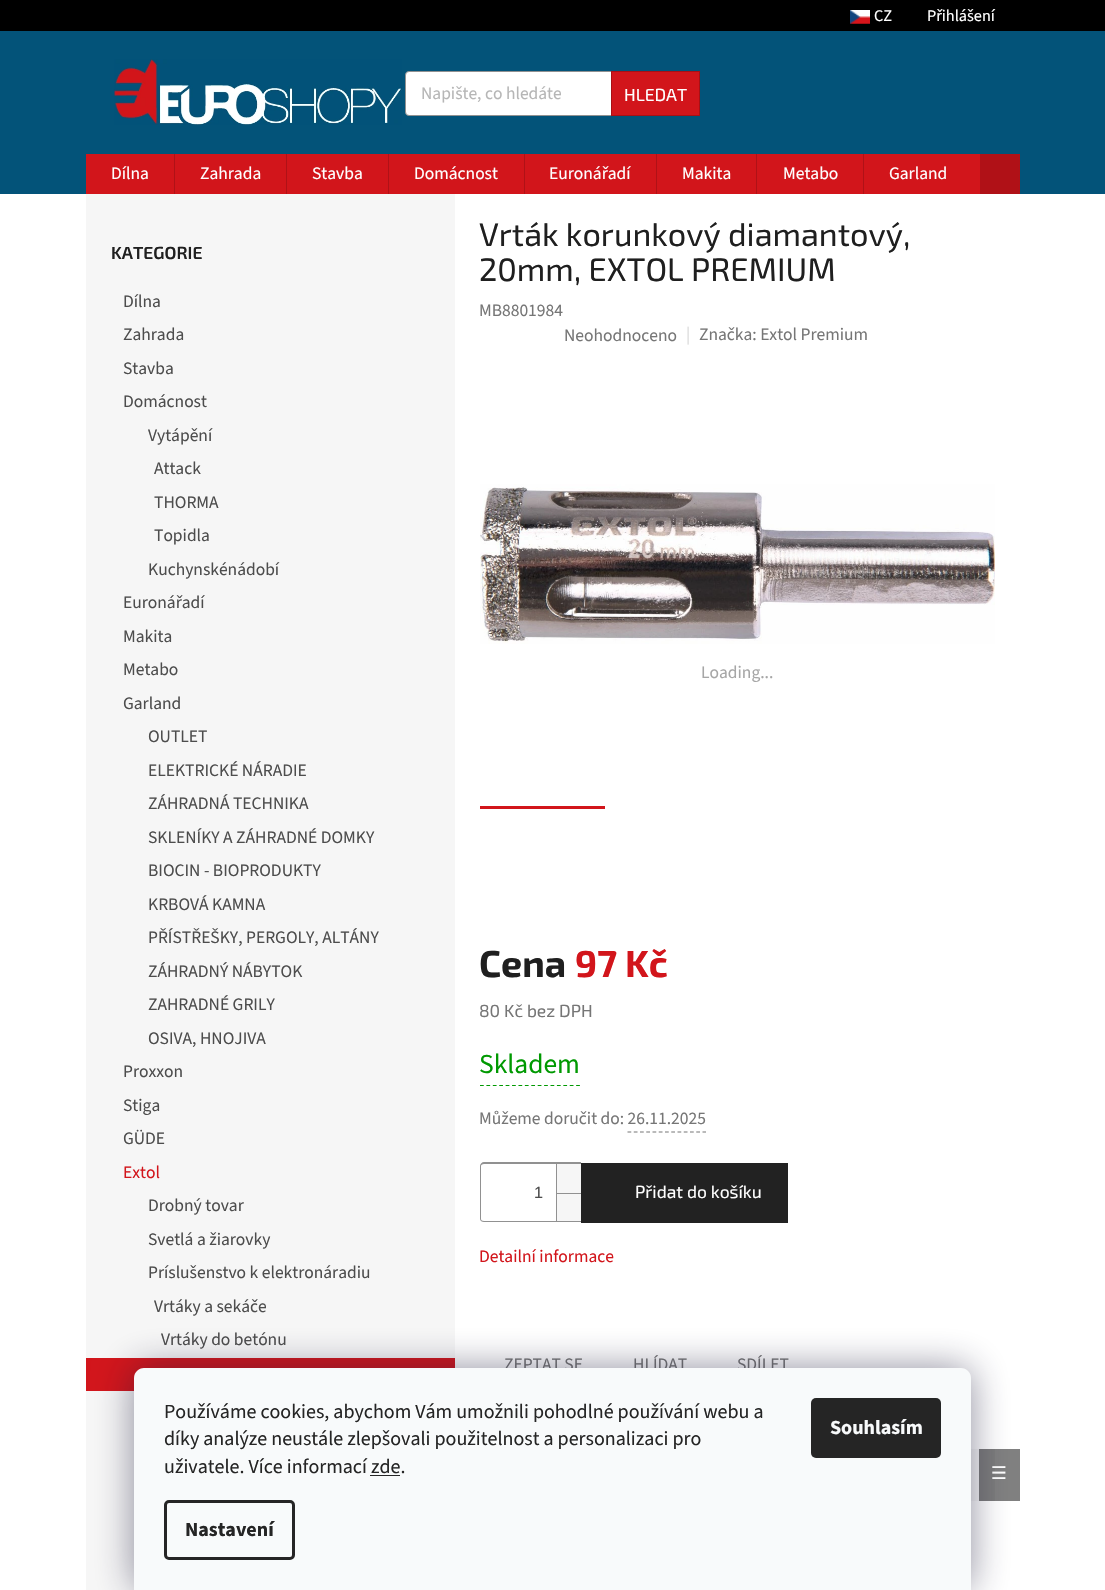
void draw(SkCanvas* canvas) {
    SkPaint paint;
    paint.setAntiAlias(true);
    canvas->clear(0xFFFFFFFF);
    paint.setColor(0xFF808080);
    canvas->drawRect(SkRect::MakeXYWH(995, 1449, 25, 52), paint);
    paint.setColor(0xFF000000);
    canvas->drawRect(SkRect::MakeXYWH(0, 0, 1105, 31), paint);
    canvas->drawImageRect(SkImages::DeferredFromEncodedData(SkData::MakeFromFileName("img1.png")), SkRect::MakeXYWH(850, 10, 20, 14), SkSamplingOptions());
    SkFont font1(fontMgr->matchFamilyStyle("Source Sans 3", SkFontStyle::Normal()), 16.25f);
    font1.setSubpixel(true);
    paint.setColor(0xFFFFFFFF);
    canvas->drawString("CZ", 874, 21, font1, paint);
    canvas->drawString("Přihlášení", 927, 21, font1, paint);
    paint.setColor(0xFF035379);
    canvas->drawRect(SkRect::MakeXYWH(0, 31, 1105, 163), paint);
    canvas->drawImageRect(SkImages::DeferredFromEncodedData(SkData::MakeFromFileName("img2.png")), SkRect::MakeXYWH(114, 59, 288, 66), SkSamplingOptions());
    paint.setColor(0xFFFFFFFF);
    canvas->drawRoundRect(SkRect::MakeXYWH(405.5f, 71.5f, 294, 44), 3.5f, 3.5f, paint);
    paint.setStyle(SkPaint::kStroke_Style);
    paint.setStrokeWidth(1);
    paint.setColor(0xFF919191);
    canvas->drawRoundRect(SkRect::MakeXYWH(405.5f, 71.5f, 294, 44), 3.5f, 3.5f, paint);
    SkFont font2(fontMgr->matchFamilyStyle("Source Sans 3", SkFontStyle::Normal()), 17.5f);
    font2.setSubpixel(true);
    paint.setStyle(SkPaint::kFill_Style);
    paint.setColor(0xFFB6B6B6);
    canvas->drawString("Napište, co hledáte", 421, 99, font2, paint);
    paint.setColor(0xFFD2151B);
    canvas->drawRect(SkRect::MakeXYWH(611.5f, 71.5f, 88, 44), paint);
    paint.setStyle(SkPaint::kStroke_Style);
    paint.setColor(0xFFA81015);
    canvas->drawRect(SkRect::MakeXYWH(611.5f, 71.5f, 88, 44), paint);
    SkFont font3(fontMgr->matchFamilyStyle("Exo 2", SkFontStyle::Normal()), 17.5f);
    font3.setSubpixel(true);
    paint.setStyle(SkPaint::kFill_Style);
    paint.setColor(0xFFFFFFFF);
    canvas->drawString("HLEDAT", 624, 101, font3, paint);
    paint.setColor(0xFFD2151B);
    canvas->drawRect(SkRect::MakeXYWH(86, 154, 894, 40), paint);
    paint.setColor(0xFFFFFFFF);
    canvas->drawString("Dílna", 111, 179, font2, paint);
    paint.setColor(0xFFB01117);
    canvas->drawRect(SkRect::MakeXYWH(174, 154, 1, 40), paint);
    paint.setColor(0xFFFFFFFF);
    canvas->drawString("Zahrada", 200, 179, font2, paint);
    paint.setColor(0xFFB01117);
    canvas->drawRect(SkRect::MakeXYWH(286, 154, 1, 40), paint);
    paint.setColor(0xFFFFFFFF);
    canvas->drawString("Stavba", 312, 179, font2, paint);
    paint.setColor(0xFFB01117);
    canvas->drawRect(SkRect::MakeXYWH(388, 154, 1, 40), paint);
    paint.setColor(0xFFFFFFFF);
    canvas->drawString("Domácnost", 414, 179, font2, paint);
    paint.setColor(0xFFB01117);
    canvas->drawRect(SkRect::MakeXYWH(524, 154, 1, 40), paint);
    paint.setColor(0xFFFFFFFF);
    canvas->drawString("Euronářadí", 549, 179, font2, paint);
    paint.setColor(0xFFB01117);
    canvas->drawRect(SkRect::MakeXYWH(656, 154, 1, 40), paint);
    paint.setColor(0xFFFFFFFF);
    canvas->drawString("Makita", 682, 179, font2, paint);
    paint.setColor(0xFFB01117);
    canvas->drawRect(SkRect::MakeXYWH(756, 154, 1, 40), paint);
    paint.setColor(0xFFFFFFFF);
    canvas->drawString("Metabo", 783, 179, font2, paint);
    paint.setColor(0xFFB01117);
    canvas->drawRect(SkRect::MakeXYWH(863, 154, 1, 40), paint);
    paint.setColor(0xFFFFFFFF);
    canvas->drawString("Garland", 889, 179, font2, paint);
    paint.setColor(0xFFB01117);
    canvas->drawRect(SkRect::MakeXYWH(980, 154, 40, 40), paint);
    paint.setColor(0xFFF6F6F6);
    canvas->drawRect(SkRect::MakeXYWH(86, 194, 369, 1396), paint);
    SkFont font4(fontMgr->matchFamilyStyle("Exo 2", SkFontStyle(600, SkFontStyle::kNormal_Width, SkFontStyle::kUpright_Slant)), 17.5f);
    font4.setSubpixel(true);
    paint.setColor(0xFF1F1F1F);
    canvas->drawString("KATEGORIE", 111, 259, font4, paint);
    paint.setColor(0xFF4D4D4D);
    canvas->drawString("Dílna", 123, 307, font2, paint);
    canvas->drawString("Zahrada", 123, 340, font2, paint);
    canvas->drawString("Stavba", 123, 374, font2, paint);
    canvas->drawString("Domácnost", 123, 407, font2, paint);
    canvas->drawString("Vytápění", 148, 441, font2, paint);
    canvas->drawString("Attack", 154, 474, font2, paint);
    canvas->drawString("THORMA", 154, 508, font2, paint);
    canvas->drawString("Topidla", 154, 541, font2, paint);
    canvas->drawString("Kuchynskénádobí", 148, 575, font2, paint);
    canvas->drawString("Euronářadí", 123, 608, font2, paint);
    canvas->drawString("Makita", 123, 642, font2, paint);
    canvas->drawString("Metabo", 123, 675, font2, paint);
    canvas->drawString("Garland", 123, 709, font2, paint);
    canvas->drawString("OUTLET", 148, 742, font2, paint);
    canvas->drawString("ELEKTRICKÉ NÁRADIE", 148, 776, font2, paint);
    canvas->drawString("ZÁHRADNÁ TECHNIKA", 148, 809, font2, paint);
    canvas->drawString("SKLENÍKY A ZÁHRADNÉ DOMKY", 148, 843, font2, paint);
    canvas->drawString("BIOCIN - BIOPRODUKTY", 148, 876, font2, paint);
    canvas->drawString("KRBOVÁ KAMNA", 148, 910, font2, paint);
    canvas->drawString("PŘÍSTŘEŠKY, PERGOLY, ALTÁNY", 148, 943, font2, paint);
    canvas->drawString("ZÁHRADNÝ NÁBYTOK", 148, 977, font2, paint);
    canvas->drawString("ZAHRADNÉ GRILY", 148, 1010, font2, paint);
    canvas->drawString("OSIVA, HNOJIVA", 148, 1044, font2, paint);
    canvas->drawString("Proxxon", 123, 1077, font2, paint);
    canvas->drawString("Stiga", 123, 1111, font2, paint);
    canvas->drawString("GÜDE", 123, 1144, font2, paint);
    paint.setColor(0xFFD2151B);
    canvas->drawString("Extol", 123, 1178, font2, paint);
    paint.setColor(0xFF4D4D4D);
    canvas->drawString("Drobný tovar", 148, 1211, font2, paint);
    canvas->drawString("Svetlá a žiarovky", 148, 1245, font2, paint);
    canvas->drawString("Príslušenstvo k elektronáradiu", 148, 1278, font2, paint);
    canvas->drawString("Vrtáky a sekáče", 154, 1312, font2, paint);
    canvas->drawString("Vrtáky do betónu", 161, 1345, font2, paint);
    paint.setColor(0xFFD2151B);
    canvas->drawRect(SkRect::MakeXYWH(86, 1358, 369, 33), paint);
    SkFont font5(fontMgr->matchFamilyStyle("Exo 2", SkFontStyle::Normal()), 32.5f);
    font5.setSubpixel(true);
    paint.setColor(0xFF1F1F1F);
    canvas->drawString("Vrták korunkový diamantový,", 479, 246, font5, paint);
    canvas->drawString("20mm, EXTOL PREMIUM", 479, 281, font5, paint);
    paint.setColor(0xFF767676);
    canvas->drawString("MB8801984", 479, 316, font2, paint);
    canvas->drawString("Neohodnoceno", 564, 341, font2, paint);
    paint.setColor(0xFFDADADA);
    canvas->drawString("|", 686, 340, font2, paint);
    paint.setColor(0xFF767676);
    canvas->drawString("Značka: Extol Premium", 699, 340, font2, paint);
    canvas->drawImageRect(SkImages::DeferredFromEncodedData(SkData::MakeFromFileName("img3.png")), SkRect::MakeXYWH(480, 484, 515, 160), SkSamplingOptions());
    paint.setColor(0xFFA6A6A6);
    canvas->drawString("Loading...", 701, 678, font2, paint);
    paint.setColor(0xFFD2151B);
    canvas->drawRect(SkRect::MakeXYWH(480, 806, 125, 3), paint);
    SkFont font6(fontMgr->matchFamilyStyle("Exo 2", SkFontStyle::Bold()), 37.5f);
    font6.setSubpixel(true);
    paint.setColor(0xFF1F1F1F);
    canvas->drawString("Cena", 479, 977, font6, paint);
    paint.setColor(0xFFD2151B);
    canvas->drawString("97 Kč", 575, 977, font6, paint);
    paint.setColor(0xFF767676);
    canvas->drawString("80 Kč bez DPH", 479, 1017, font3, paint);
    SkFont font7(fontMgr->matchFamilyStyle("Source Sans 3", SkFontStyle::Normal()), 27.5f);
    font7.setSubpixel(true);
    paint.setColor(0xFF009901);
    canvas->drawString("Skladem", 479, 1073, font7, paint);
    paint.setStyle(SkPaint::kStroke_Style);
    paint.setStrokeWidth(1.2f);
    paint.setPathEffect(SkDashPathEffect::Make({{3.75f, 2.66f}}, 0));
    canvas->drawPath(SkPathBuilder().moveTo(480, 1085.5f).lineTo(580, 1085.5f).detach(), paint);
    paint.setPathEffect(nullptr);
    paint.setStyle(SkPaint::kFill_Style);
    paint.setColor(0xFF767676);
    canvas->drawString("Můžeme doručit do: 26.11.2025", 479, 1124, font2, paint);
    paint.setStyle(SkPaint::kStroke_Style);
    paint.setPathEffect(SkDashPathEffect::Make({{3.75f, 2.5f}}, 0));
    canvas->drawPath(SkPathBuilder().moveTo(627.5f, 1132).lineTo(706, 1132).detach(), paint);
    paint.setPathEffect(nullptr);
    paint.setStyle(SkPaint::kFill_Style);
    paint.setColor(0xFF919191);
    canvas->drawPath(SkPathBuilder(SkPathFillType::kEvenOdd).moveTo(484, 1162).lineTo(581, 1162).lineTo(581, 1222).lineTo(484, 1222).cubicTo(482, 1222, 480, 1221, 480, 1219).lineTo(480, 1166).cubicTo(480, 1164, 482, 1162, 484, 1162).close().moveTo(484, 1164).lineTo(581, 1164).lineTo(581, 1221).lineTo(484, 1221).cubicTo(482, 1221, 481, 1220, 481, 1219).lineTo(481, 1166).cubicTo(481, 1165, 482, 1164, 484, 1164).close().detach(), paint);
    SkFont font8(fontMgr->matchFamilyStyle("Liberation Sans", SkFontStyle::Normal()), 16.25f);
    font8.setSubpixel(true);
    paint.setColor(0xFF4D4D4D);
    canvas->drawString("1", 534, 1198, font8, paint);
    paint.setColor(0xFFF6F6F6);
    canvas->drawRect(SkRect::MakeXYWH(557, 1164, 24, 29), paint);
    paint.setColor(0xFF919191);
    canvas->drawRect(SkRect::MakeXYWH(556, 1164, 1, 29), paint);
    paint.setColor(0xFFF6F6F6);
    canvas->drawRect(SkRect::MakeXYWH(557, 1194, 24, 27), paint);
    paint.setColor(0xFF919191);
    canvas->drawRect(SkRect::MakeXYWH(556, 1193, 25, 1), paint);
    canvas->drawRect(SkRect::MakeXYWH(556, 1193, 1, 28), paint);
    paint.setColor(0xFF222222);
    canvas->drawRect(SkRect::MakeXYWH(581, 1163, 207, 60), paint);
    paint.setColor(0xFFFFFFFF);
    canvas->drawString("Přidat do košíku", 635, 1198, font3, paint);
    paint.setColor(0xFFD2151B);
    canvas->drawString("Detailní informace", 479, 1262, font2, paint);
    paint.setColor(0xFF767676);
    canvas->drawString("ZEPTAT SE", 504, 1370, font2, paint);
    canvas->drawString("HLÍDAT", 633, 1370, font2, paint);
    canvas->drawString("SDÍLET", 737, 1370, font2, paint);
    paint.setColor(0xFFF6F6F6);
    canvas->drawRect(SkRect::MakeXYWH(971, 1449, 8, 52), paint);
    paint.setColor(0xFF7B7B7B);
    canvas->drawRect(SkRect::MakeXYWH(979, 1449, 16, 52), paint);
    SkFont font9(fontMgr->matchFamilyStyle("DejaVu Sans", SkFontStyle::Normal()), 17.5f);
    font9.setSubpixel(true);
    paint.setColor(0xFFFFFFFF);
    canvas->drawString("☰", 991, 1479, font9, paint);
    paint.setColor(0x801B1939);
    paint.setMaskFilter(SkMaskFilter::MakeBlur(kNormal_SkBlurStyle, 19));
    canvas->drawRoundRect(SkRect::MakeXYWH(134, 1368, 837, 222), 10, 10, paint);
    paint.setMaskFilter(nullptr);
    paint.setColor(0xFFF8FAFB);
    canvas->drawPath(SkPathBuilder().moveTo(144, 1368).lineTo(961, 1368).cubicTo(966.5f, 1368, 971, 1372.5f, 971, 1378).lineTo(971, 1590).lineTo(134, 1590).lineTo(134, 1378).cubicTo(134, 1372.5f, 138.5f, 1368, 144, 1368).close().detach(), paint);
    SkFont font10(fontMgr->matchFamilyStyle("Source Sans 3", SkFontStyle::Normal()), 20);
    font10.setSubpixel(true);
    paint.setColor(0xFF252525);
    canvas->drawString("Používáme cookies, abychom Vám umožnili pohodlné používání webu a", 164, 1418, font10, paint);
    canvas->drawString("díky analýze neustále zlepšovali použitelnost a personalizaci pro", 164, 1445, font10, paint);
    canvas->drawString("uživatele. Více informací zde.", 164, 1473, font10, paint);
    canvas->drawRect(SkRect::MakeXYWH(370, 1475, 30, 1), paint);
    paint.setStyle(SkPaint::kStroke_Style);
    paint.setStrokeWidth(3);
    canvas->drawRoundRect(SkRect::MakeXYWH(165.5f, 1501.5f, 128, 57), 3.5f, 3.5f, paint);
    SkFont font11(fontMgr->matchFamilyStyle("Source Sans 3", SkFontStyle::Bold()), 20);
    font11.setSubpixel(true);
    paint.setStyle(SkPaint::kFill_Style);
    canvas->drawString("Nastavení", 185, 1536, font11, paint);
    canvas->drawRoundRect(SkRect::MakeXYWH(811, 1398, 130, 60), 5, 5, paint);
    paint.setColor(0xFFF8FAFB);
    canvas->drawString("Souhlasím", 830, 1434, font11, paint);
}
